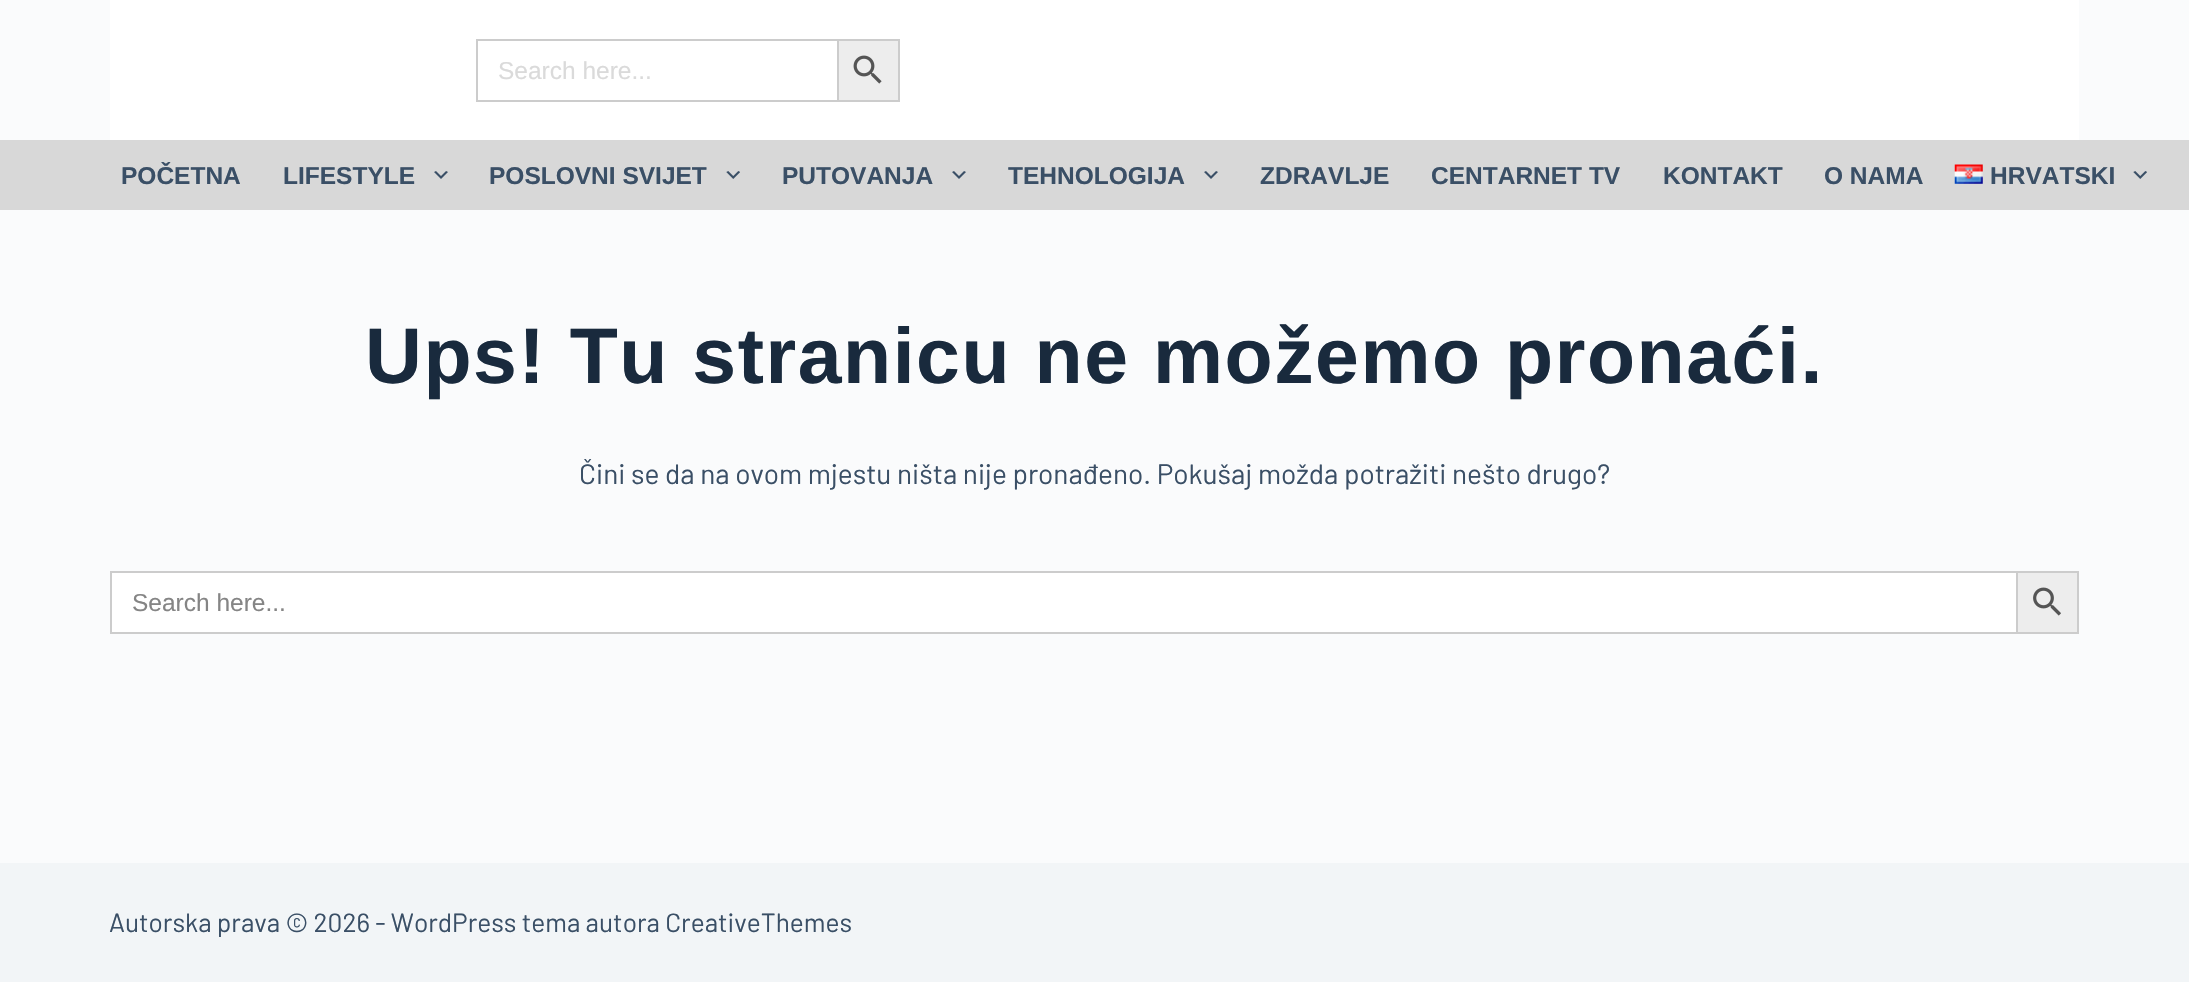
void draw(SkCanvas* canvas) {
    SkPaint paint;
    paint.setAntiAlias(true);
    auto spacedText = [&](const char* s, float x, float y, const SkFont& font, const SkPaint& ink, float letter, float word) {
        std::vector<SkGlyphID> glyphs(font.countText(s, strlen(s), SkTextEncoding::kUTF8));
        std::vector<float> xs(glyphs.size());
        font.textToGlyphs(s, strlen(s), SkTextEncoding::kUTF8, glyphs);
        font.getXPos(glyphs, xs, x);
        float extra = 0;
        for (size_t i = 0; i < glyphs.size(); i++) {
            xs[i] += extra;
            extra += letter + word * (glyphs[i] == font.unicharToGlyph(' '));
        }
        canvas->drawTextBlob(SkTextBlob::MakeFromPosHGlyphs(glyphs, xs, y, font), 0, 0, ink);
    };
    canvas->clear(0xFFFAFBFC);
    paint.setColor(0xFFFFFFFF);
    canvas->drawRect(SkRect::MakeXYWH(110, 0, 1969, 140), paint);
    paint.setColor(0xFFCCCCCC);
    canvas->drawRect(SkRect::MakeXYWH(476, 39, 361, 2), paint);
    canvas->drawRect(SkRect::MakeXYWH(476, 100, 361, 2), paint);
    canvas->drawRect(SkRect::MakeXYWH(476, 39, 2, 63), paint);
    SkFont font1(fontMgr->matchFamilyStyle("Liberation Sans", SkFontStyle::Normal()), 24.5f);
    font1.setSubpixel(true);
    paint.setColor(0xFFDADADA);
    canvas->drawString("Search here...", 498, 79, font1, paint);
    paint.setColor(0xFFEDEDED);
    canvas->drawRect(SkRect::MakeXYWH(838, 40, 61, 61), paint);
    paint.setStyle(SkPaint::kStroke_Style);
    paint.setStrokeWidth(2);
    paint.setColor(0xFFCCCCCC);
    canvas->drawRect(SkRect::MakeXYWH(838, 40, 61, 61), paint);
    canvas->drawImageRect(SkImages::DeferredFromEncodedData(SkData::MakeFromFileName("img1.png")), SkRect::MakeXYWH(853, 55, 29, 29), SkSamplingOptions());
    paint.setStyle(SkPaint::kFill_Style);
    paint.setColor(0xFFD8D8D8);
    canvas->drawRect(SkRect::MakeXYWH(0, 140, 2189, 70), paint);
    SkFont font2(fontMgr->matchFamilyStyle("Liberation Sans", SkFontStyle::Bold()), 24.5f);
    font2.setSubpixel(true);
    paint.setColor(0xFF3A4F66);
    canvas->drawString("POČETNA", 121, 184, font2, paint);
    canvas->drawString("LIFESTYLE", 283, 184, font2, paint);
    canvas->drawImageRect(SkImages::DeferredFromEncodedData(SkData::MakeFromFileName("img2.png")), SkRect::MakeXYWH(434, 171, 14, 8), SkSamplingOptions());
    canvas->drawString("POSLOVNI SVIJET", 489, 184, font2, paint);
    canvas->drawImageRect(SkImages::DeferredFromEncodedData(SkData::MakeFromFileName("img3.png")), SkRect::MakeXYWH(726, 171, 14, 8), SkSamplingOptions());
    canvas->drawString("PUTOVANJA", 782, 184, font2, paint);
    canvas->drawImageRect(SkImages::DeferredFromEncodedData(SkData::MakeFromFileName("img2.png")), SkRect::MakeXYWH(952, 171, 14, 8), SkSamplingOptions());
    canvas->drawString("TEHNOLOGIJA", 1008, 184, font2, paint);
    canvas->drawImageRect(SkImages::DeferredFromEncodedData(SkData::MakeFromFileName("img2.png")), SkRect::MakeXYWH(1204, 171, 14, 8), SkSamplingOptions());
    canvas->drawString("ZDRAVLJE", 1260, 184, font2, paint);
    canvas->drawString("CENTARNET TV", 1431, 184, font2, paint);
    canvas->drawString("KONTAKT", 1663, 184, font2, paint);
    canvas->drawString("O NAMA", 1824, 184, font2, paint);
    canvas->drawImageRect(SkImages::DeferredFromEncodedData(SkData::MakeFromFileName("img4.png")), SkRect::MakeXYWH(1954, 164, 29, 20), SkSamplingOptions());
    canvas->drawString("HRVATSKI", 1990, 184, font2, paint);
    canvas->drawImageRect(SkImages::DeferredFromEncodedData(SkData::MakeFromFileName("img3.png")), SkRect::MakeXYWH(2133, 171, 14, 8), SkSamplingOptions());
    SkFont font3(fontMgr->matchFamilyStyle("Liberation Sans", SkFontStyle::Bold()), 78.75f);
    font3.setSubpixel(true);
    paint.setColor(0xFF192A3D);
    spacedText("Ups! Tu stranicu ne možemo pronaći.", 365, 383, font3, paint, 1.55f, 0);
    SkFont font4(fontMgr->matchFamilyStyle("Barlow", SkFontStyle::Normal()), 28);
    font4.setSubpixel(true);
    paint.setColor(0xFF3A4F66);
    canvas->drawString("Čini se da na ovom mjestu ništa nije pronađeno. Pokušaj možda potražiti nešto drugo?", 579, 484, font4, paint);
    paint.setColor(0xFFFFFFFF);
    canvas->drawRect(SkRect::MakeXYWH(112, 573, 1904, 59), paint);
    paint.setColor(0xFFCCCCCC);
    canvas->drawRect(SkRect::MakeXYWH(110, 571, 1906, 2), paint);
    canvas->drawRect(SkRect::MakeXYWH(110, 632, 1906, 2), paint);
    canvas->drawRect(SkRect::MakeXYWH(110, 571, 2, 63), paint);
    paint.setColor(0xFF858585);
    canvas->drawString("Search here...", 132, 611, font1, paint);
    paint.setColor(0xFFEDEDED);
    canvas->drawRect(SkRect::MakeXYWH(2017, 572, 61, 61), paint);
    paint.setStyle(SkPaint::kStroke_Style);
    paint.setColor(0xFFCCCCCC);
    canvas->drawRect(SkRect::MakeXYWH(2017, 572, 61, 61), paint);
    canvas->drawImageRect(SkImages::DeferredFromEncodedData(SkData::MakeFromFileName("img5.png")), SkRect::MakeXYWH(2033, 587, 28, 29), SkSamplingOptions());
    paint.setStyle(SkPaint::kFill_Style);
    paint.setColor(0xFFF2F5F7);
    canvas->drawRect(SkRect::MakeXYWH(0, 863, 2189, 119), paint);
    SkFont font5(fontMgr->matchFamilyStyle("Barlow", SkFontStyle::Normal()), 26.25f);
    font5.setSubpixel(true);
    paint.setColor(0xFF3A4F66);
    canvas->drawString("Autorska prava © 2026 - WordPress tema autora CreativeThemes", 109, 932, font5, paint);
}
